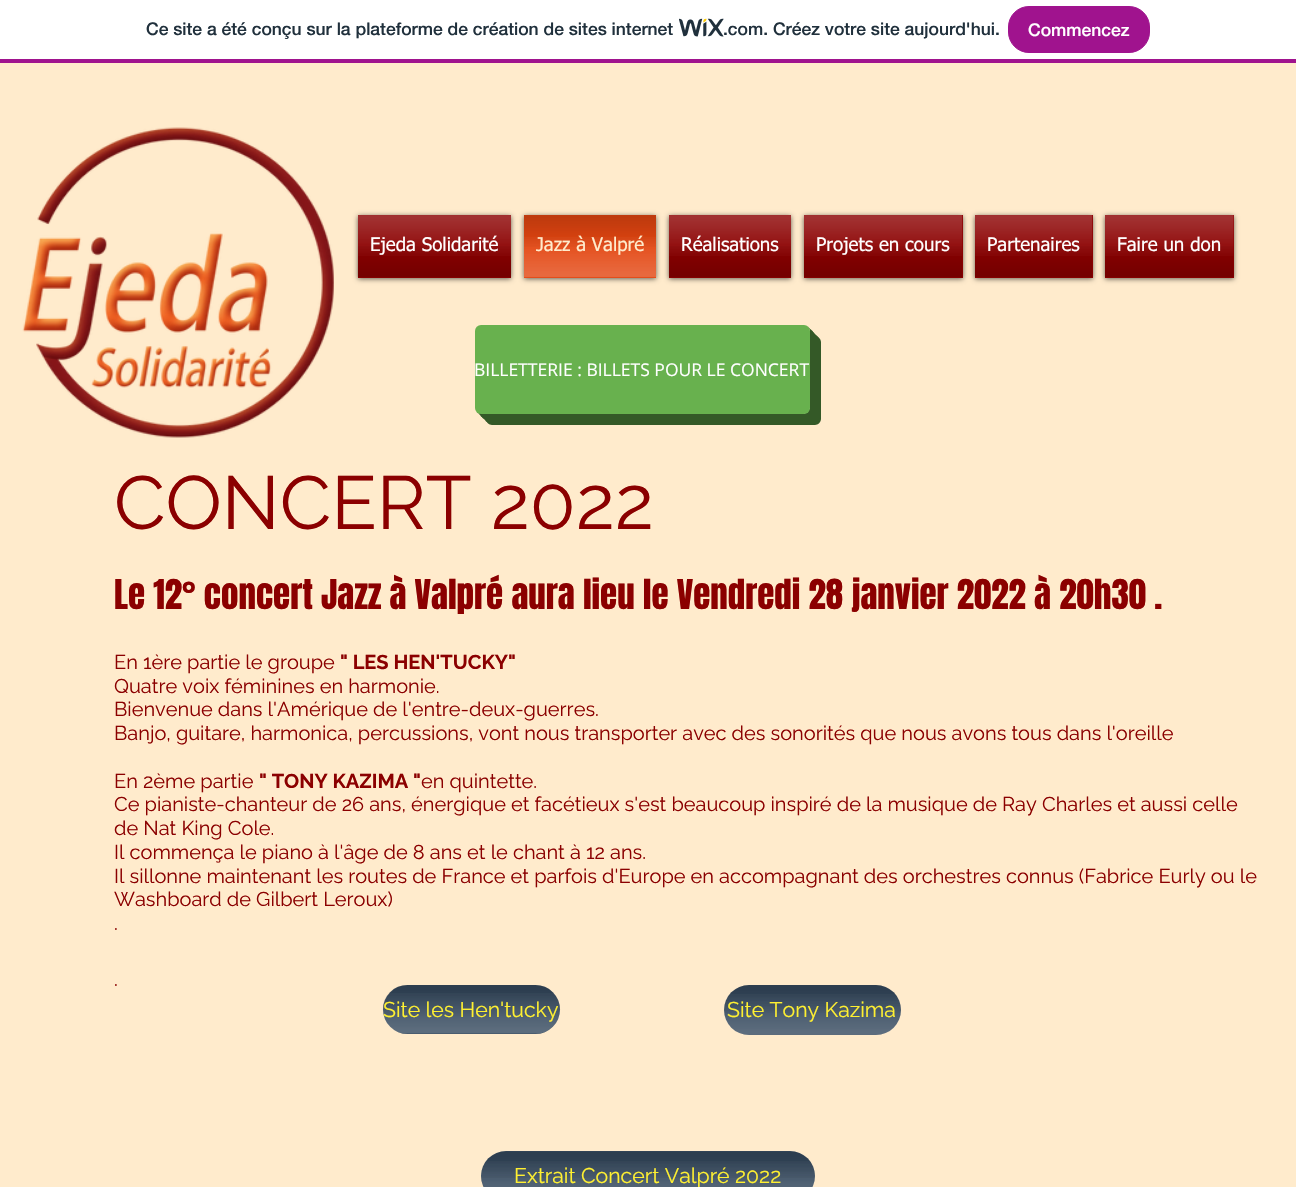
void draw(SkCanvas* canvas) {
    SkPaint paint;
    paint.setAntiAlias(true);
    canvas->clear(0xFFFFFFFF);
    paint.setColor(0xFFA0138E);
    canvas->drawRect(SkRect::MakeXYWH(0, 59, 1296, 4), paint);
    SkFont font1(fontMgr->matchFamilyStyle("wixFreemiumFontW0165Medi", SkFontStyle(500, SkFontStyle::kNormal_Width, SkFontStyle::kUpright_Slant)), 17.5f);
    font1.setSubpixel(true);
    paint.setColor(0xFF20303C);
    canvas->drawString("Ce site a été conçu sur la plateforme de création de sites internet", 146, 35, font1, paint);
    canvas->drawImageRect(SkImages::DeferredFromEncodedData(SkData::MakeFromFileName("img1.png")), SkRect::MakeXYWH(679, 18, 45, 19), SkSamplingOptions());
    canvas->drawString(".com. Créez votre site aujourd'hui.", 723, 35, font1, paint);
    paint.setColor(0xFFA0138E);
    canvas->drawRoundRect(SkRect::MakeXYWH(1008.5f, 6.5f, 141, 46), 20.5f, 20.5f, paint);
    paint.setStyle(SkPaint::kStroke_Style);
    paint.setStrokeWidth(1);
    canvas->drawRoundRect(SkRect::MakeXYWH(1008.5f, 6.5f, 141, 46), 20.5f, 20.5f, paint);
    paint.setStyle(SkPaint::kFill_Style);
    paint.setColor(0xFFFFFFFF);
    canvas->drawString("Commencez", 1028, 36, font1, paint);
    paint.setColor(0xFFFFEBCC);
    canvas->drawRect(SkRect::MakeXYWH(0, 63, 1296, 1124), paint);
    canvas->drawImageRect(SkImages::DeferredFromEncodedData(SkData::MakeFromFileName("img2.png")), SkRect::MakeXYWH(22, 127, 312, 311), SkSamplingOptions());
    paint.setColor(0x99000000);
    paint.setMaskFilter(SkMaskFilter::MakeBlur(kNormal_SkBlurStyle, 2.5f));
    canvas->drawRect(SkRect::MakeXYWH(358, 216, 153, 63), paint);
    paint.setMaskFilter(nullptr);
    paint.setColor(0xFF8B0000);
    canvas->drawRect(SkRect::MakeXYWH(358, 215, 153, 63), paint);
    canvas->drawImageRect(SkImages::DeferredFromEncodedData(SkData::MakeFromFileName("img3.png")), SkRect::MakeXYWH(358, 215, 153, 41), SkSamplingOptions());
    canvas->drawImageRect(SkImages::DeferredFromEncodedData(SkData::MakeFromFileName("img4.png")), SkRect::MakeXYWH(357, 246, 154, 32), SkSamplingOptions());
    SkFont font2(fontMgr->matchFamilyStyle("tahoma", SkFontStyle::Normal()), 18.75f);
    font2.setSubpixel(true);
    paint.setColor(0xFFFFFFFF);
    canvas->drawString("Ejeda Solidarité", 370, 251, font2, paint);
    paint.setColor(0x99000000);
    paint.setMaskFilter(SkMaskFilter::MakeBlur(kNormal_SkBlurStyle, 2.5f));
    canvas->drawRect(SkRect::MakeXYWH(524, 216, 132, 63), paint);
    paint.setMaskFilter(nullptr);
    paint.setColor(0xFFE34510);
    canvas->drawRect(SkRect::MakeXYWH(524, 215, 132, 63), paint);
    canvas->drawImageRect(SkImages::DeferredFromEncodedData(SkData::MakeFromFileName("img5.png")), SkRect::MakeXYWH(524, 215, 132, 32), SkSamplingOptions());
    canvas->drawImageRect(SkImages::DeferredFromEncodedData(SkData::MakeFromFileName("img6.png")), SkRect::MakeXYWH(524, 237, 132, 41), SkSamplingOptions());
    paint.setColor(0xFFFFEBCC);
    canvas->drawString("Jazz à Valpré", 536, 251, font2, paint);
    paint.setColor(0x99000000);
    paint.setMaskFilter(SkMaskFilter::MakeBlur(kNormal_SkBlurStyle, 2.5f));
    canvas->drawRect(SkRect::MakeXYWH(669, 216, 122, 63), paint);
    paint.setMaskFilter(nullptr);
    paint.setColor(0xFF8B0000);
    canvas->drawRect(SkRect::MakeXYWH(669, 215, 122, 63), paint);
    canvas->drawImageRect(SkImages::DeferredFromEncodedData(SkData::MakeFromFileName("img7.png")), SkRect::MakeXYWH(669, 215, 122, 41), SkSamplingOptions());
    canvas->drawImageRect(SkImages::DeferredFromEncodedData(SkData::MakeFromFileName("img8.png")), SkRect::MakeXYWH(669, 246, 122, 32), SkSamplingOptions());
    paint.setColor(0xFFFFFFFF);
    canvas->drawString("Réalisations", 681, 251, font2, paint);
    paint.setColor(0x99000000);
    paint.setMaskFilter(SkMaskFilter::MakeBlur(kNormal_SkBlurStyle, 2.5f));
    canvas->drawRect(SkRect::MakeXYWH(804, 216, 159, 63), paint);
    paint.setMaskFilter(nullptr);
    paint.setColor(0xFF8B0000);
    canvas->drawRect(SkRect::MakeXYWH(804, 215, 159, 63), paint);
    canvas->drawImageRect(SkImages::DeferredFromEncodedData(SkData::MakeFromFileName("img9.png")), SkRect::MakeXYWH(804, 215, 159, 41), SkSamplingOptions());
    canvas->drawImageRect(SkImages::DeferredFromEncodedData(SkData::MakeFromFileName("img10.png")), SkRect::MakeXYWH(804, 246, 159, 32), SkSamplingOptions());
    paint.setColor(0xFFFFFFFF);
    canvas->drawString("Projets en cours", 816, 251, font2, paint);
    paint.setColor(0x99000000);
    paint.setMaskFilter(SkMaskFilter::MakeBlur(kNormal_SkBlurStyle, 2.5f));
    canvas->drawRect(SkRect::MakeXYWH(975, 216, 118, 63), paint);
    paint.setMaskFilter(nullptr);
    paint.setColor(0xFF8B0000);
    canvas->drawRect(SkRect::MakeXYWH(975, 215, 118, 63), paint);
    canvas->drawImageRect(SkImages::DeferredFromEncodedData(SkData::MakeFromFileName("img11.png")), SkRect::MakeXYWH(975, 215, 118, 41), SkSamplingOptions());
    canvas->drawImageRect(SkImages::DeferredFromEncodedData(SkData::MakeFromFileName("img12.png")), SkRect::MakeXYWH(975, 246, 118, 32), SkSamplingOptions());
    paint.setColor(0xFFFFFFFF);
    canvas->drawString("Partenaires", 987, 251, font2, paint);
    paint.setColor(0x99000000);
    paint.setMaskFilter(SkMaskFilter::MakeBlur(kNormal_SkBlurStyle, 2.5f));
    canvas->drawRect(SkRect::MakeXYWH(1105, 216, 129, 63), paint);
    paint.setMaskFilter(nullptr);
    paint.setColor(0xFF8B0000);
    canvas->drawRect(SkRect::MakeXYWH(1105, 215, 129, 63), paint);
    canvas->drawImageRect(SkImages::DeferredFromEncodedData(SkData::MakeFromFileName("img13.png")), SkRect::MakeXYWH(1105, 215, 129, 41), SkSamplingOptions());
    canvas->drawImageRect(SkImages::DeferredFromEncodedData(SkData::MakeFromFileName("img14.png")), SkRect::MakeXYWH(1105, 246, 129, 32), SkSamplingOptions());
    paint.setColor(0xFFFFFFFF);
    canvas->drawString("Faire un don", 1117, 251, font2, paint);
    paint.setColor(0xFF345927);
    canvas->drawPath(SkPathBuilder().moveTo(486, 414).lineTo(486, 419).cubicTo(486, 422, 489, 425, 492, 425).lineTo(815, 425).cubicTo(818, 425, 821, 422, 821, 419).lineTo(821, 342).cubicTo(821, 339, 818, 336, 815, 336).lineTo(810, 336).lineTo(810, 408).cubicTo(810, 411, 807, 414, 804, 414).close().detach(), paint);
    canvas->drawPath(SkPathBuilder().moveTo(484, 414).lineTo(484, 417).cubicTo(484, 420, 487, 423, 490, 423).lineTo(813, 423).cubicTo(816, 423, 819, 420, 819, 417).lineTo(819, 340).cubicTo(819, 337, 816, 334, 813, 334).lineTo(810, 334).lineTo(810, 408).cubicTo(810, 411, 807, 414, 804, 414).close().detach(), paint);
    canvas->drawPath(SkPathBuilder().moveTo(481, 414).cubicTo(481, 417, 484, 420, 487, 420).lineTo(810, 420).cubicTo(813, 420, 816, 417, 816, 414).lineTo(816, 337).cubicTo(816, 334, 813, 331, 810, 331).lineTo(810, 395).cubicTo(810, 399, 813, 414, 804, 414).close().detach(), paint);
    canvas->drawPath(SkPathBuilder().moveTo(479, 413).cubicTo(480, 416, 482, 418, 485, 418).lineTo(808, 418).cubicTo(811, 418, 814, 415, 814, 412).lineTo(814, 335).cubicTo(814, 332, 812, 330, 810, 329).lineTo(810, 395).cubicTo(810, 399, 813, 414, 804, 414).close().detach(), paint);
    canvas->drawPath(SkPathBuilder().moveTo(477, 412).cubicTo(478, 414, 480, 415, 482, 415).lineTo(805, 415).cubicTo(808, 415, 811, 412, 811, 409).lineTo(811, 332).cubicTo(811, 330, 810, 328, 808, 327).cubicTo(809, 328, 810, 330, 810, 331).lineTo(810, 408).cubicTo(810, 411, 807, 414, 804, 414).lineTo(481, 414).cubicTo(479, 414, 478, 413, 477, 412).close().detach(), paint);
    paint.setColor(0xFF68B14E);
    canvas->drawRoundRect(SkRect::MakeXYWH(475, 325, 335, 89), 6, 6, paint);
    SkFont font3(fontMgr->matchFamilyStyle("Open Sans", SkFontStyle::Normal()), 17.5f);
    font3.setSubpixel(true);
    paint.setColor(0xFFFFFFFF);
    canvas->drawString("BILLETTERIE : BILLETS POUR LE CONCERT", 474, 376, font3, paint);
    SkFont font4(fontMgr->matchFamilyStyle("Raleway", SkFontStyle::Normal()), 75);
    font4.setSubpixel(true);
    paint.setColor(0xFF8B0000);
    canvas->drawString("CONCERT 2022", 114, 529, font4, paint);
    SkFont font5(fontMgr->matchFamilyStyle("Anton", SkFontStyle::Normal()), 35);
    font5.setSubpixel(true);
    canvas->drawString("Le 12° concert Jazz à Valpré aura lieu le Vendredi 28 janvier 2022 à 20h30 .", 114, 609, font5, paint);
    SkFont font6(fontMgr->matchFamilyStyle("Raleway", SkFontStyle::Normal()), 20);
    font6.setSubpixel(true);
    canvas->drawString("En 1ère partie le groupe", 114, 669, font6, paint);
    SkFont font7(fontMgr->matchFamilyStyle("Raleway", SkFontStyle::Bold()), 20);
    font7.setSubpixel(true);
    canvas->drawString("\" LES HEN'TUCKY\"", 340, 669, font7, paint);
    canvas->drawString("Quatre voix féminines en harmonie.", 114, 693, font6, paint);
    canvas->drawString("Bienvenue dans l'Amérique de l'entre-deux-guerres.", 114, 716, font6, paint);
    canvas->drawString("Banjo, guitare, harmonica, percussions, vont nous transporter avec des sonorités que nous avons tous dans l'oreille", 114, 740, font6, paint);
    canvas->drawString("En 2ème partie", 114, 788, font6, paint);
    canvas->drawString("\" TONY KAZIMA \"", 259, 788, font7, paint);
    canvas->drawString("en quintette.", 421, 788, font6, paint);
    canvas->drawString("Ce pianiste-chanteur de 26 ans, énergique et facétieux s'est beaucoup inspiré de la musique de Ray Charles et aussi celle", 114, 811, font6, paint);
    canvas->drawString("de Nat King Cole.", 114, 835, font6, paint);
    canvas->drawString("Il commença le piano à l'âge de 8 ans et le chant à 12 ans.", 114, 859, font6, paint);
    canvas->drawString("Il sillonne maintenant les routes de France et parfois d'Europe en accompagnant des orchestres connus (Fabrice Eurly ou le", 114, 883, font6, paint);
    canvas->drawString("Washboard de Gilbert Leroux)", 114, 906, font6, paint);
    canvas->drawString(".", 114, 930, font6, paint);
    canvas->drawString(".", 114, 986, font6, paint);
    paint.setColor(0xFF35495E);
    canvas->drawRoundRect(SkRect::MakeXYWH(383, 985, 177, 49), 24.5f, 24.5f, paint);
    canvas->drawImageRect(SkImages::DeferredFromEncodedData(SkData::MakeFromFileName("img15.png")), SkRect::MakeXYWH(383, 985, 177, 31), SkSamplingOptions());
    canvas->drawImageRect(SkImages::DeferredFromEncodedData(SkData::MakeFromFileName("img16.png")), SkRect::MakeXYWH(383, 993, 177, 41), SkSamplingOptions());
    SkFont font8(fontMgr->matchFamilyStyle("Raleway", SkFontStyle::Normal()), 21.25f);
    font8.setSubpixel(true);
    paint.setColor(0xFFFFF031);
    canvas->drawString("Site les Hen'tucky", 383, 1017, font8, paint);
    paint.setColor(0xFF35495E);
    canvas->drawRoundRect(SkRect::MakeXYWH(724, 985, 177, 50), 25, 25, paint);
    canvas->drawImageRect(SkImages::DeferredFromEncodedData(SkData::MakeFromFileName("img17.png")), SkRect::MakeXYWH(724, 985, 177, 28), SkSamplingOptions());
    canvas->drawImageRect(SkImages::DeferredFromEncodedData(SkData::MakeFromFileName("img18.png")), SkRect::MakeXYWH(724, 994, 177, 41), SkSamplingOptions());
    paint.setColor(0xFFFFF031);
    canvas->drawString("Site Tony Kazima", 727, 1017, font8, paint);
    paint.setColor(0xFF35495E);
    canvas->drawRoundRect(SkRect::MakeXYWH(481, 1151, 334, 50), 25, 25, paint);
    canvas->drawImageRect(SkImages::DeferredFromEncodedData(SkData::MakeFromFileName("img19.png")), SkRect::MakeXYWH(482, 1151, 333, 27), SkSamplingOptions());
    canvas->drawImageRect(SkImages::DeferredFromEncodedData(SkData::MakeFromFileName("img20.png")), SkRect::MakeXYWH(481, 1161, 334, 26), SkSamplingOptions());
    paint.setColor(0xFFFFF031);
    canvas->drawString("Extrait Concert Valpré 2022", 514, 1183, font8, paint);
}
